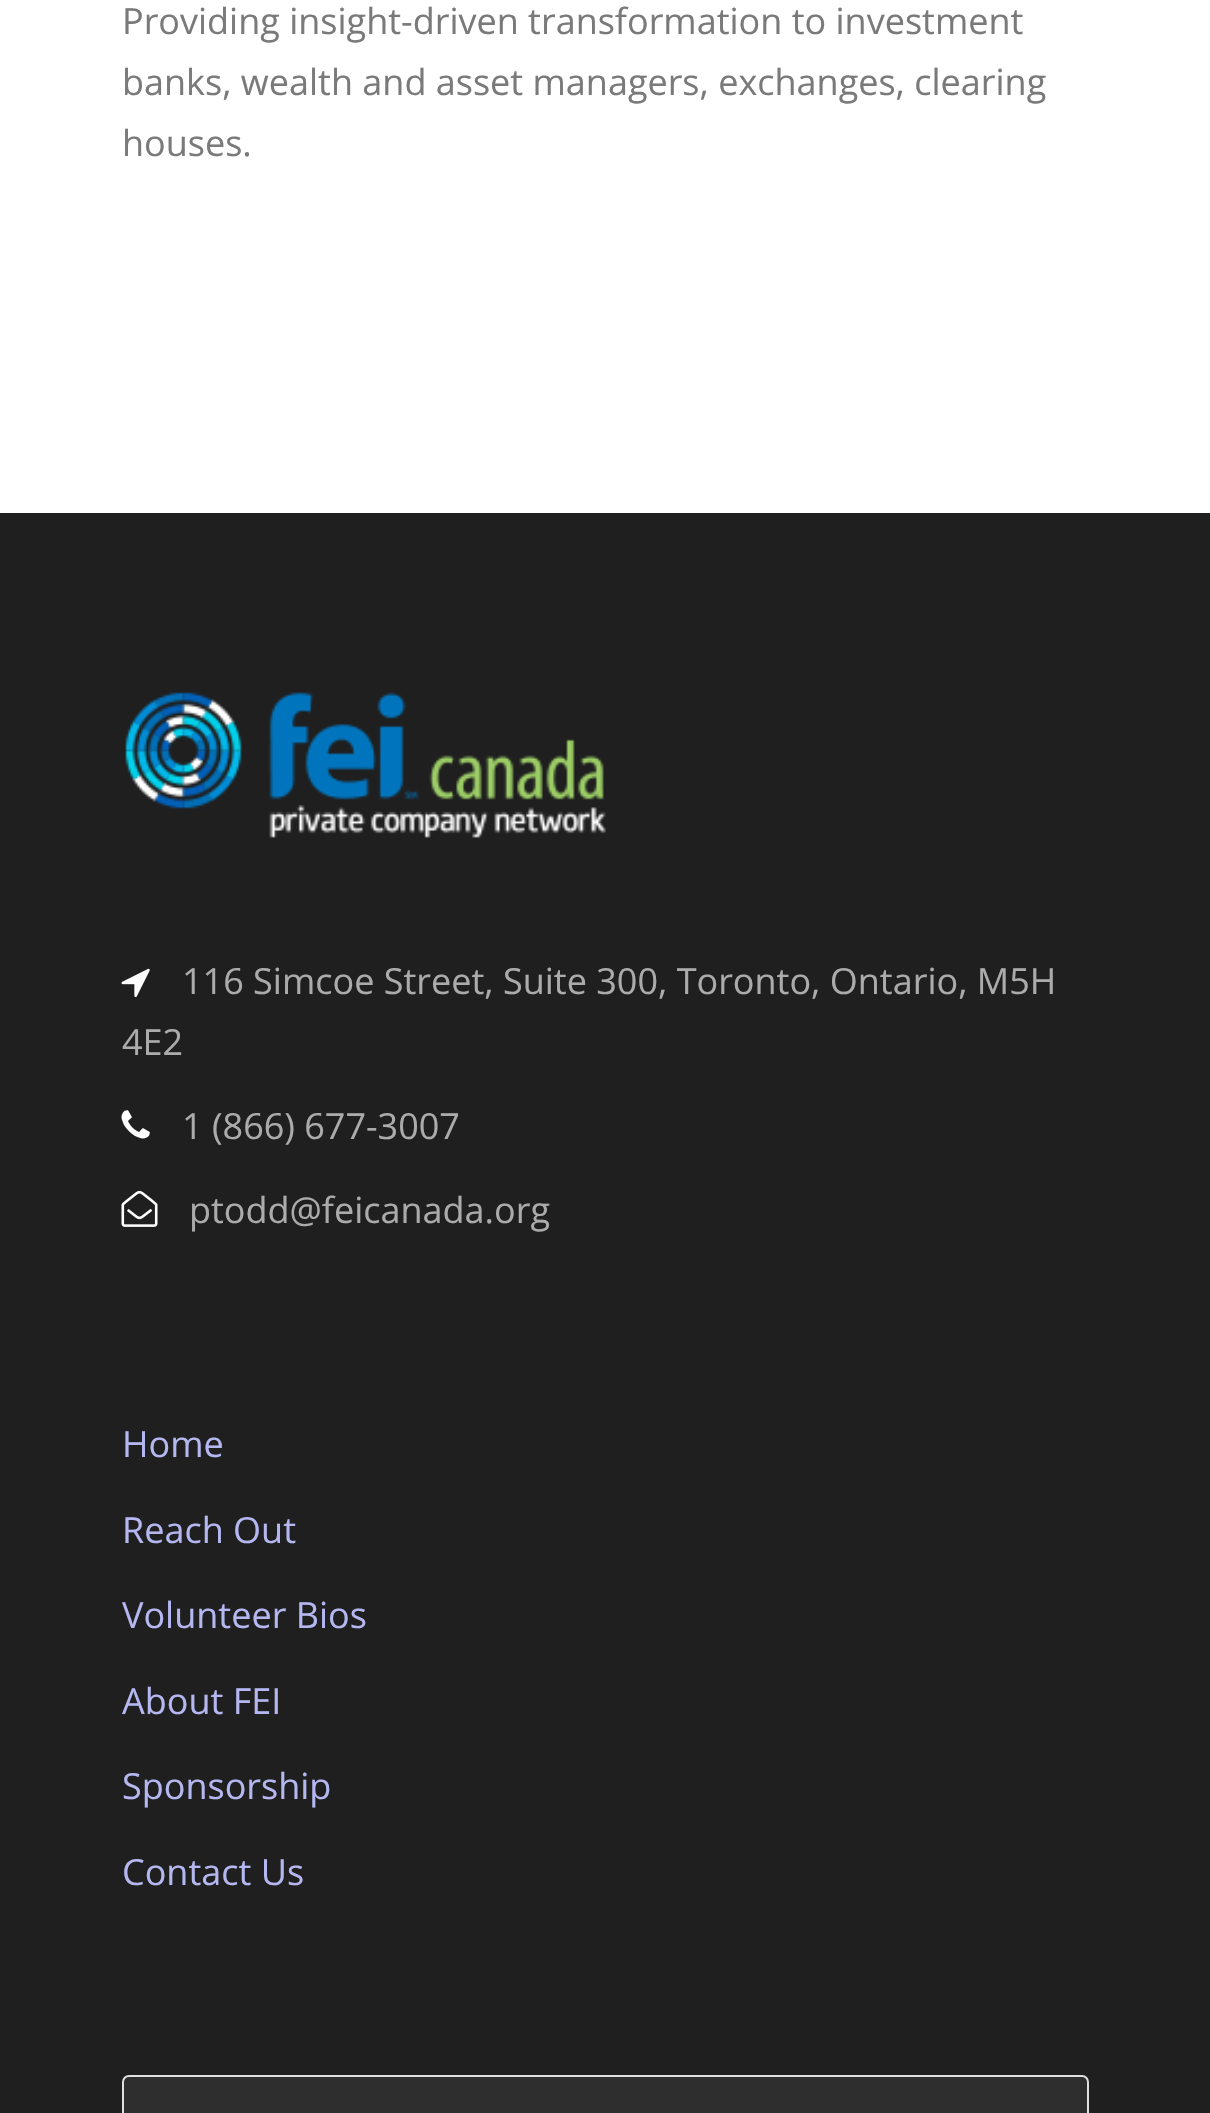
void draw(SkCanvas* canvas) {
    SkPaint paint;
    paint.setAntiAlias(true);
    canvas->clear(0xFFFFFFFF);
    SkFont font1(fontMgr->matchFamilyStyle("Open Sans", SkFontStyle::Normal()), 36);
    font1.setSubpixel(true);
    paint.setColor(0xFF7A7A7A);
    canvas->drawString("Providing insight-driven transformation to investment", 122, 34, font1, paint);
    canvas->drawString("banks, wealth and asset managers, exchanges, clearing", 122, 95, font1, paint);
    canvas->drawString("houses.", 122, 156, font1, paint);
    paint.setColor(0xFF1F1F1F);
    canvas->drawRect(SkRect::MakeXYWH(0, 513, 1210, 1600), paint);
    canvas->drawImageRect(SkImages::DeferredFromEncodedData(SkData::MakeFromFileName("img1.png")), SkRect::MakeXYWH(125, 692, 481, 146), SkSamplingOptions());
    canvas->drawImageRect(SkImages::DeferredFromEncodedData(SkData::MakeFromFileName("img2.png")), SkRect::MakeXYWH(121, 968, 29, 30), SkSamplingOptions());
    paint.setColor(0xFFABABAB);
    canvas->drawString("116 Simcoe Street, Suite 300, Toronto, Ontario, M5H", 182, 994, font1, paint);
    canvas->drawString("4E2", 122, 1055, font1, paint);
    canvas->drawImageRect(SkImages::DeferredFromEncodedData(SkData::MakeFromFileName("img3.png")), SkRect::MakeXYWH(121, 1110, 29, 29), SkSamplingOptions());
    canvas->drawString("1 (866) 677-3007", 182, 1139, font1, paint);
    canvas->drawImageRect(SkImages::DeferredFromEncodedData(SkData::MakeFromFileName("img4.png")), SkRect::MakeXYWH(121, 1190, 37, 37), SkSamplingOptions());
    canvas->drawString("ptodd@feicanada.org", 189, 1223, font1, paint);
    paint.setColor(0xFFB5B7F1);
    canvas->drawString("Home", 122, 1457, font1, paint);
    canvas->drawString("Reach Out", 122, 1543, font1, paint);
    canvas->drawString("Volunteer Bios", 122, 1628, font1, paint);
    canvas->drawString("About FEI", 122, 1714, font1, paint);
    canvas->drawString("Sponsorship", 122, 1799, font1, paint);
    canvas->drawString("Contact Us", 122, 1885, font1, paint);
    paint.setColor(0xFF2E2E2E);
    canvas->drawRoundRect(SkRect::MakeXYWH(123, 2076, 965, 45), 6, 6, paint);
    paint.setStyle(SkPaint::kStroke_Style);
    paint.setStrokeWidth(2);
    paint.setColor(0xFFE0E0E0);
    canvas->drawRoundRect(SkRect::MakeXYWH(123, 2076, 965, 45), 6, 6, paint);
}
